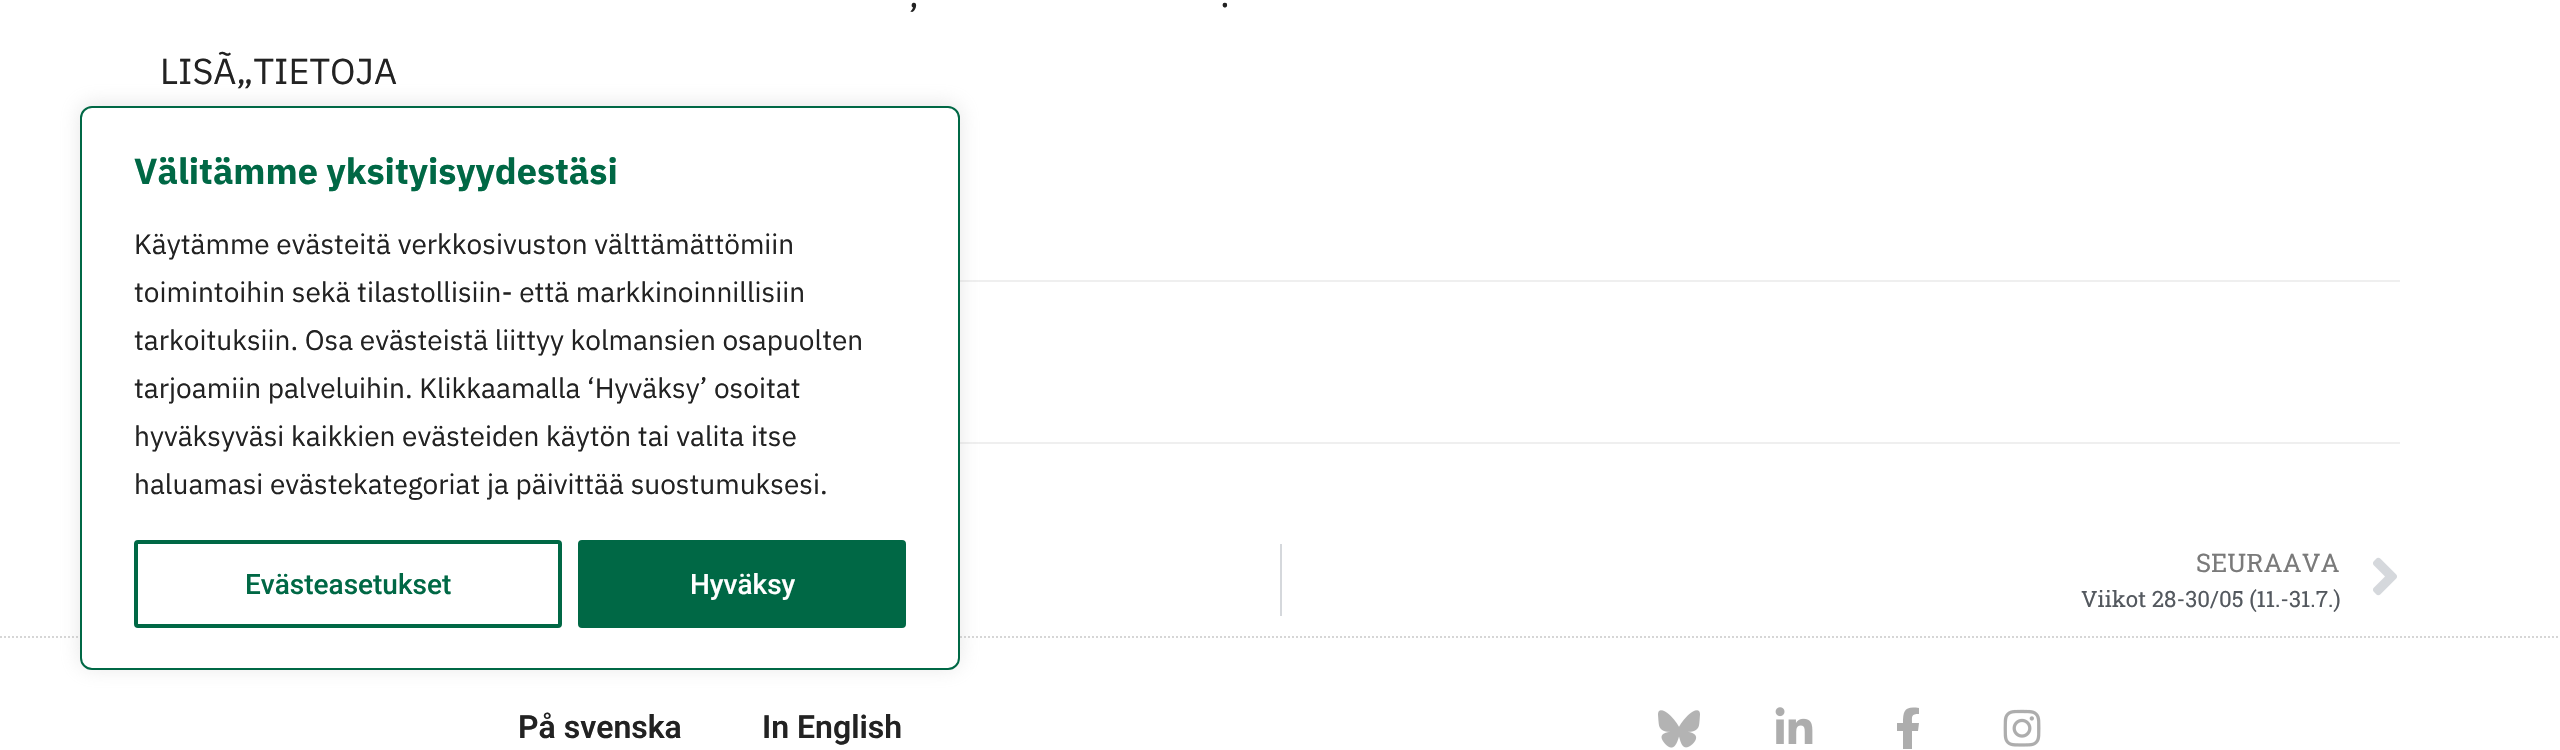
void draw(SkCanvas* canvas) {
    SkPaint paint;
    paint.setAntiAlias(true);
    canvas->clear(0xFFFFFFFF);
    SkFont font1(fontMgr->matchFamilyStyle("IBM Plex Sans", SkFontStyle::Normal()), 36);
    font1.setSubpixel(true);
    paint.setColor(0xFF222222);
    canvas->drawString(",", 909, 7, font1, paint);
    canvas->drawString(".", 1220, 7, font1, paint);
    canvas->drawString("LISÃ„TIETOJA", 160, 84, font1, paint);
    paint.setColor(0xFFEFEFEF);
    canvas->drawRect(SkRect::MakeXYWH(960, 280, 1440, 2), paint);
    canvas->drawRect(SkRect::MakeXYWH(960, 442, 1440, 2), paint);
    paint.setColor(0xFFD5D8DC);
    canvas->drawRect(SkRect::MakeXYWH(1280, 544, 2, 72), paint);
    SkFont font2(fontMgr->matchFamilyStyle("Roboto Slab", SkFontStyle::Normal()), 25.5f);
    font2.setSubpixel(true);
    paint.setColor(0xFF7A7A7A);
    canvas->drawString("SEURAAVA", 2196, 572, font2, paint);
    SkFont font3(fontMgr->matchFamilyStyle("Roboto Slab", SkFontStyle::Normal()), 22.4f);
    font3.setSubpixel(true);
    paint.setColor(0xFF54595F);
    canvas->drawString("Viikot 28-30/05 (11.-31.7.)", 2081, 607, font3, paint);
    canvas->drawImageRect(SkImages::DeferredFromEncodedData(SkData::MakeFromFileName("img1.png")), SkRect::MakeXYWH(2373, 557, 24, 39), SkSamplingOptions());
    paint.setStyle(SkPaint::kStroke_Style);
    paint.setStrokeWidth(2);
    paint.setColor(0xFFD6D6D6);
    paint.setPathEffect(SkDashPathEffect::Make({{2, 2}}, 0));
    canvas->drawPath(SkPathBuilder().moveTo(0, 637).lineTo(2560, 637).detach(), paint);
    paint.setPathEffect(nullptr);
    paint.setStyle(SkPaint::kFill_Style);
    paint.setColor(0x4DACABAB);
    paint.setMaskFilter(SkMaskFilter::MakeBlur(kNormal_SkBlurStyle, 10));
    canvas->drawRoundRect(SkRect::MakeXYWH(80, 104, 880, 564), 12, 12, paint);
    paint.setMaskFilter(nullptr);
    paint.setColor(0xFFFFFFFF);
    canvas->drawRoundRect(SkRect::MakeXYWH(81, 107, 878, 562), 11, 11, paint);
    paint.setStyle(SkPaint::kStroke_Style);
    paint.setColor(0xFF006845);
    canvas->drawRoundRect(SkRect::MakeXYWH(81, 107, 878, 562), 11, 11, paint);
    SkFont font4(fontMgr->matchFamilyStyle("IBM Plex Sans", SkFontStyle::Bold()), 36);
    font4.setSubpixel(true);
    paint.setStyle(SkPaint::kFill_Style);
    canvas->drawString("Välitämme yksityisyydestäsi", 134, 184, font4, paint);
    SkFont font5(fontMgr->matchFamilyStyle("IBM Plex Sans", SkFontStyle::Normal()), 28);
    font5.setSubpixel(true);
    paint.setColor(0xFF222222);
    canvas->drawString("Käytämme evästeitä verkkosivuston välttämättömiin", 134, 254, font5, paint);
    canvas->drawString("toimintoihin sekä tilastollisiin- että markkinoinnillisiin", 134, 302, font5, paint);
    canvas->drawString("tarkoituksiin. Osa evästeistä liittyy kolmansien osapuolten", 134, 350, font5, paint);
    canvas->drawString("tarjoamiin palveluihin. Klikkaamalla ‘Hyväksy’ osoitat", 134, 398, font5, paint);
    canvas->drawString("hyväksyväsi kaikkien evästeiden käytön tai valita itse", 134, 446, font5, paint);
    canvas->drawString("haluamasi evästekategoriat ja päivittää suostumuksesi.", 134, 494, font5, paint);
    paint.setStyle(SkPaint::kStroke_Style);
    paint.setStrokeWidth(4);
    paint.setColor(0xFF006845);
    canvas->drawRoundRect(SkRect::MakeXYWH(136, 542, 424, 84), 2, 2, paint);
    SkFont font6(fontMgr->matchFamilyStyle("Roboto", SkFontStyle(500, SkFontStyle::kNormal_Width, SkFontStyle::kUpright_Slant)), 28);
    font6.setSubpixel(true);
    paint.setStyle(SkPaint::kFill_Style);
    canvas->drawString("Evästeasetukset", 245, 594, font6, paint);
    canvas->drawRoundRect(SkRect::MakeXYWH(580, 542, 324, 84), 2, 2, paint);
    paint.setStyle(SkPaint::kStroke_Style);
    canvas->drawRoundRect(SkRect::MakeXYWH(580, 542, 324, 84), 2, 2, paint);
    paint.setStyle(SkPaint::kFill_Style);
    paint.setColor(0xFFFFFFFF);
    canvas->drawString("Hyväksy", 690, 594, font6, paint);
    SkFont font7(fontMgr->matchFamilyStyle("Roboto", SkFontStyle(600, SkFontStyle::kNormal_Width, SkFontStyle::kUpright_Slant)), 32);
    font7.setSubpixel(true);
    paint.setColor(0xFF222222);
    canvas->drawString("På svenska", 518, 738, font7, paint);
    canvas->drawString("In English", 762, 738, font7, paint);
    canvas->drawImageRect(SkImages::DeferredFromEncodedData(SkData::MakeFromFileName("img2.png")), SkRect::MakeXYWH(1658, 710, 42, 38), SkSamplingOptions());
    canvas->drawImageRect(SkImages::DeferredFromEncodedData(SkData::MakeFromFileName("img3.png")), SkRect::MakeXYWH(1775, 707, 38, 37), SkSamplingOptions());
    paint.setColor(0xFFADADAD);
    canvas->drawPath(SkPathBuilder().moveTo(1918, 731).lineTo(1912, 731).lineTo(1912, 749).lineTo(1903, 749).lineTo(1903, 731).lineTo(1897, 731).lineTo(1897, 723).lineTo(1903, 723).cubicTo(1903, 710, 1905, 706, 1919, 708).lineTo(1919, 714).cubicTo(1911, 714, 1912, 716, 1912, 723).lineTo(1919, 723).close().detach(), paint);
    canvas->drawImageRect(SkImages::DeferredFromEncodedData(SkData::MakeFromFileName("img4.png")), SkRect::MakeXYWH(2003, 709, 38, 38), SkSamplingOptions());
}
